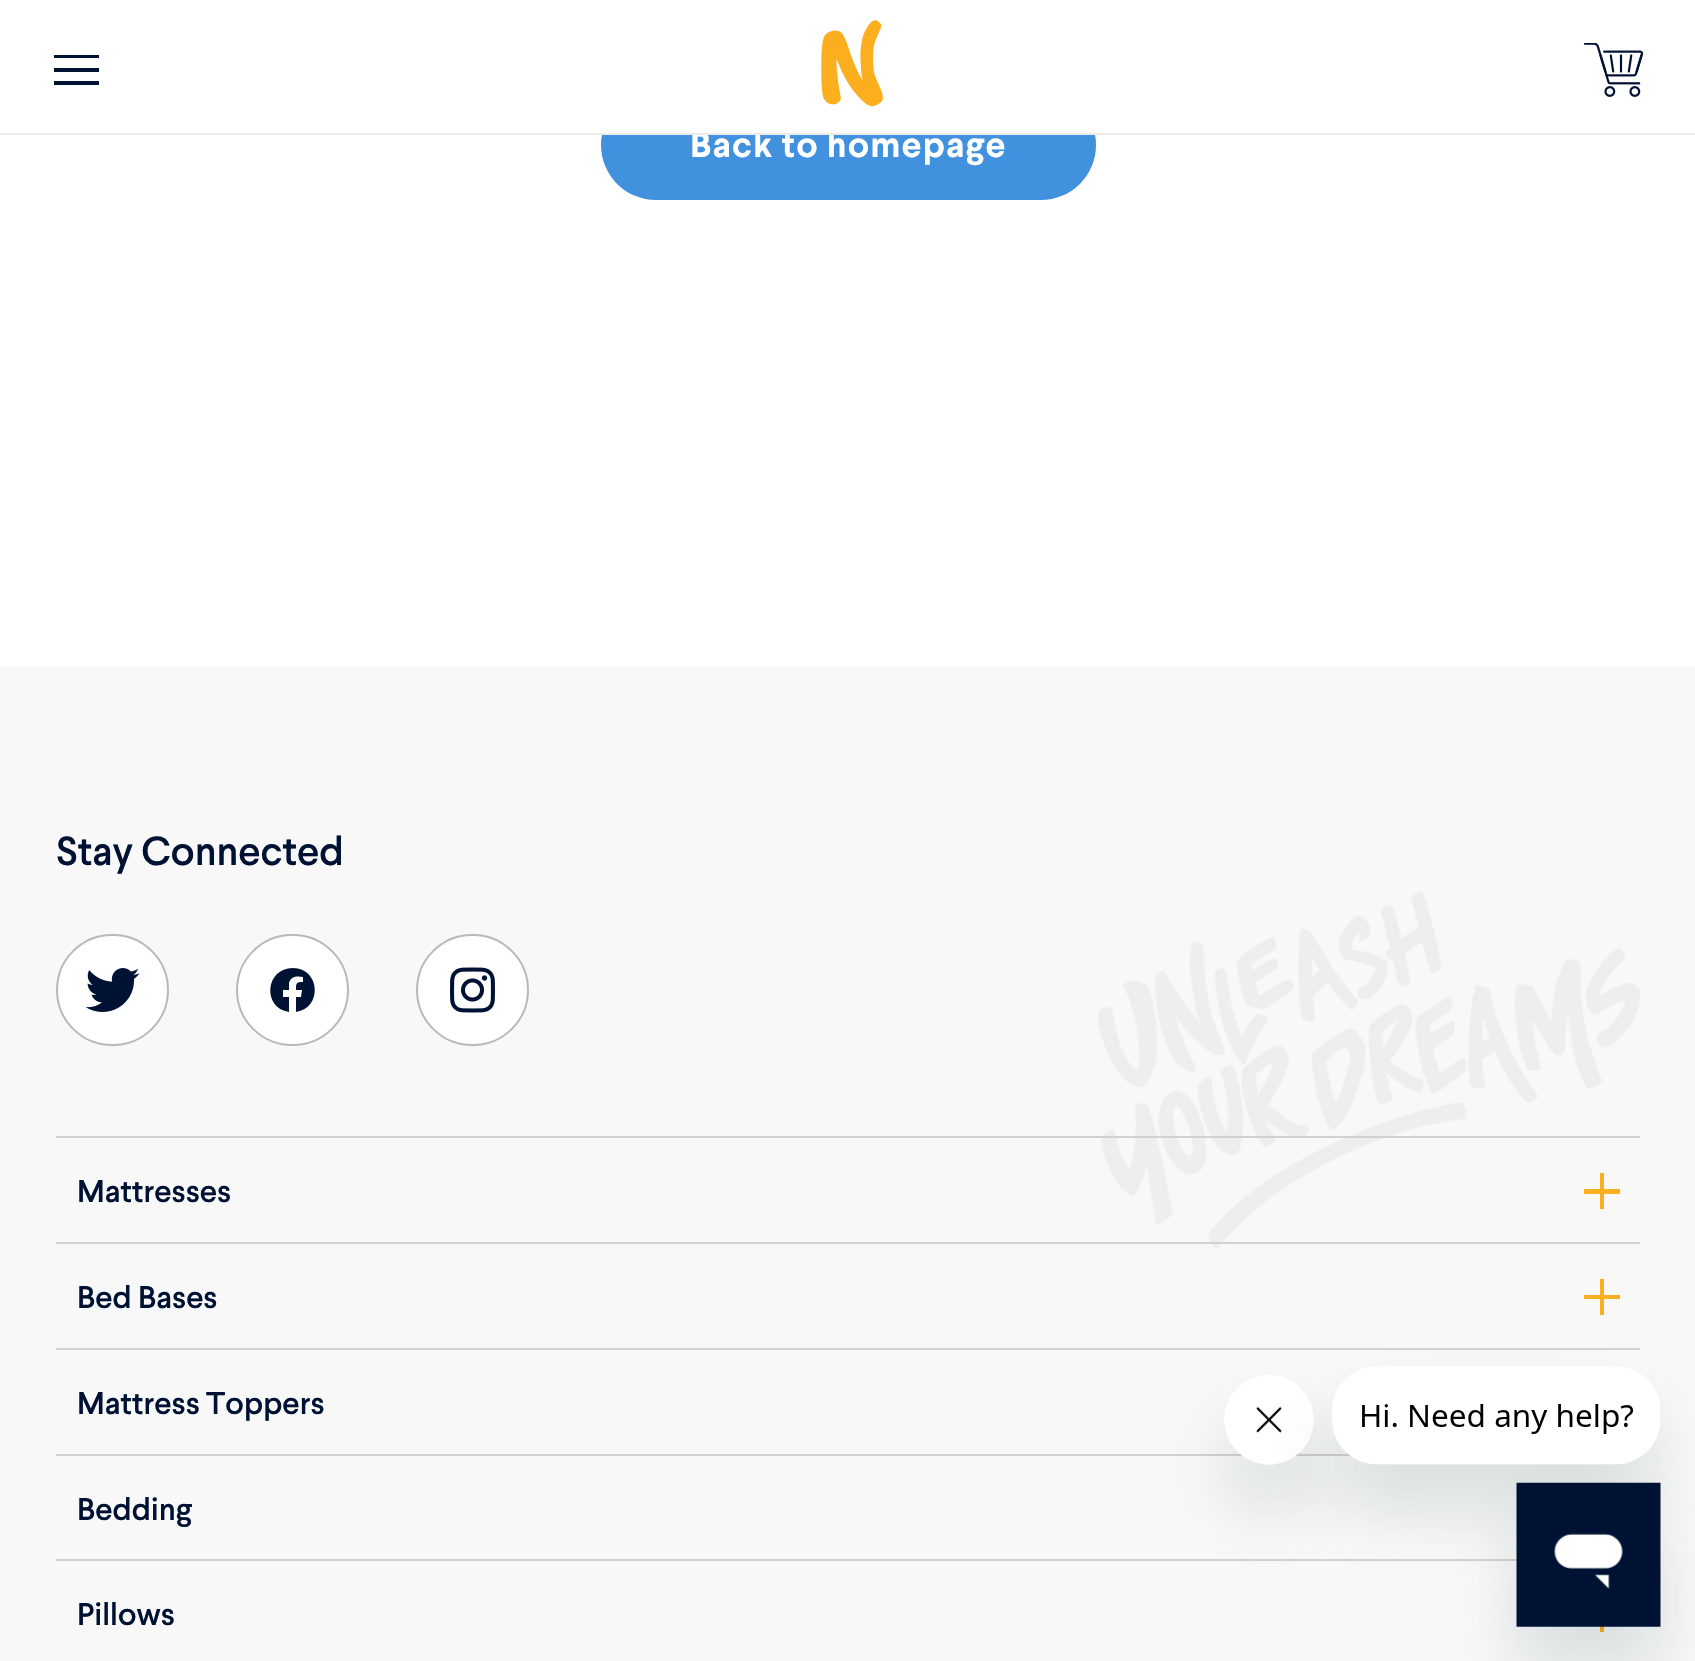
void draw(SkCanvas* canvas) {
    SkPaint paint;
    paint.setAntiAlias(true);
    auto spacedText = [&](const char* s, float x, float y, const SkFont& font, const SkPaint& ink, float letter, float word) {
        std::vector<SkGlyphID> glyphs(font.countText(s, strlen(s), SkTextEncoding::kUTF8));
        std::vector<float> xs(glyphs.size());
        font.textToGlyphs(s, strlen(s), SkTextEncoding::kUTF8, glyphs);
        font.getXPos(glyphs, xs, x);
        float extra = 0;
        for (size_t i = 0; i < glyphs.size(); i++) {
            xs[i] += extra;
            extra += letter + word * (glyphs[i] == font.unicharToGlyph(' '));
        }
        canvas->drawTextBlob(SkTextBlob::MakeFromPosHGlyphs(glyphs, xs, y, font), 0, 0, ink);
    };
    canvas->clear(0xFFFFFFFF);
    paint.setColor(0xFF4191DE);
    canvas->drawRoundRect(SkRect::MakeXYWH(601, 90, 495, 110), 55, 55, paint);
    paint.setColor(0xFFFFFFFF);
    canvas->drawRect(SkRect::MakeXYWH(602, 90, 493, 43), paint);
    SkFont font1(fontMgr->matchFamilyStyle("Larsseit", SkFontStyle::Bold()), 36);
    font1.setSubpixel(true);
    spacedText("Back to homepage", 690, 157, font1, paint, 1.1f, 0);
    paint.setColor(0xFFECEBE9);
    canvas->drawRect(SkRect::MakeXYWH(0, 133, 1695, 2), paint);
    paint.setColor(0xFF001233);
    canvas->drawPath(SkPathBuilder().moveTo(54, 85).lineTo(54, 81).lineTo(99, 81).lineTo(99, 85).close().moveTo(54, 68).lineTo(99, 68).lineTo(99, 72).lineTo(54, 72).close().moveTo(54, 55).lineTo(99, 55).lineTo(99, 58).lineTo(54, 58).close().detach(), paint);
    canvas->drawImageRect(SkImages::DeferredFromEncodedData(SkData::MakeFromFileName("img1.png")), SkRect::MakeXYWH(821, 20, 62, 87), SkSamplingOptions());
    canvas->drawImageRect(SkImages::DeferredFromEncodedData(SkData::MakeFromFileName("img2.png")), SkRect::MakeXYWH(1584, 43, 59, 54), SkSamplingOptions());
    paint.setColor(0xFFF9F8F8);
    canvas->drawRect(SkRect::MakeXYWH(0, 666, 1695, 995), paint);
    SkFont font2(fontMgr->matchFamilyStyle("Larsseit", SkFontStyle(500, SkFontStyle::kNormal_Width, SkFontStyle::kUpright_Slant)), 40.5f);
    font2.setSubpixel(true);
    paint.setColor(0xFF001233);
    canvas->drawString("Stay Connected", 56, 865, font2, paint);
    paint.setColor(0xFFFFFFFF);
    canvas->drawRoundRect(SkRect::MakeXYWH(57, 935, 111, 110), 55, 55, paint);
    paint.setStyle(SkPaint::kStroke_Style);
    paint.setStrokeWidth(2);
    paint.setColor(0xFFB9B9B9);
    canvas->drawRoundRect(SkRect::MakeXYWH(57, 935, 111, 110), 55, 55, paint);
    canvas->drawImageRect(SkImages::DeferredFromEncodedData(SkData::MakeFromFileName("img3.png")), SkRect::MakeXYWH(85, 968, 55, 44), SkSamplingOptions());
    paint.setStyle(SkPaint::kFill_Style);
    paint.setColor(0xFFFFFFFF);
    canvas->drawRoundRect(SkRect::MakeXYWH(237, 935, 111, 110), 55, 55, paint);
    paint.setStyle(SkPaint::kStroke_Style);
    paint.setColor(0xFFB9B9B9);
    canvas->drawRoundRect(SkRect::MakeXYWH(237, 935, 111, 110), 55, 55, paint);
    paint.setStyle(SkPaint::kFill_Style);
    paint.setColor(0xFF001233);
    canvas->drawPath(SkPathBuilder().moveTo(293, 968).cubicTo(265, 968, 262, 1008, 289, 1012).lineTo(289, 997).lineTo(283, 997).lineTo(283, 990).lineTo(289, 990).lineTo(289, 983).cubicTo(291, 976, 297, 976, 303, 977).lineTo(303, 982).cubicTo(296, 982, 296, 983, 296, 990).lineTo(302, 990).lineTo(301, 997).lineTo(296, 997).lineTo(296, 1012).cubicTo(323, 1008, 320, 968, 293, 968).detach(), paint);
    paint.setColor(0xFFFFFFFF);
    canvas->drawRoundRect(SkRect::MakeXYWH(417, 935, 111, 110), 55, 55, paint);
    paint.setStyle(SkPaint::kStroke_Style);
    paint.setColor(0xFFB9B9B9);
    canvas->drawRoundRect(SkRect::MakeXYWH(417, 935, 111, 110), 55, 55, paint);
    canvas->drawImageRect(SkImages::DeferredFromEncodedData(SkData::MakeFromFileName("img4.png")), SkRect::MakeXYWH(450, 967, 45, 46), SkSamplingOptions());
    canvas->drawImageRect(SkImages::DeferredFromEncodedData(SkData::MakeFromFileName("img5.png")), SkRect::MakeXYWH(1098, 891, 542, 358), SkSamplingOptions());
    paint.setStyle(SkPaint::kFill_Style);
    paint.setColor(0xFFD3D1D0);
    canvas->drawRect(SkRect::MakeXYWH(56, 1136, 1584, 2), paint);
    SkFont font3(fontMgr->matchFamilyStyle("Larsseit", SkFontStyle(500, SkFontStyle::kNormal_Width, SkFontStyle::kUpright_Slant)), 31.5f);
    font3.setSubpixel(true);
    paint.setColor(0xFF001233);
    canvas->drawString("Mattresses", 77, 1202, font3, paint);
    paint.setColor(0xFFFBAF1F);
    canvas->drawRect(SkRect::MakeXYWH(1600, 1173, 4, 36), paint);
    canvas->drawRect(SkRect::MakeXYWH(1584, 1189, 36, 5), paint);
    paint.setColor(0xFFD3D1D0);
    canvas->drawRect(SkRect::MakeXYWH(56, 1242, 1584, 2), paint);
    paint.setColor(0xFF001233);
    canvas->drawString("Bed Bases", 77, 1308, font3, paint);
    paint.setColor(0xFFFBAF1F);
    canvas->drawRect(SkRect::MakeXYWH(1600, 1279, 4, 36), paint);
    canvas->drawRect(SkRect::MakeXYWH(1584, 1295, 36, 4), paint);
    paint.setColor(0xFFD3D1D0);
    canvas->drawRect(SkRect::MakeXYWH(56, 1348, 1584, 2), paint);
    paint.setColor(0xFF001233);
    canvas->drawString("Mattress Toppers", 77, 1414, font3, paint);
    paint.setColor(0xFFD3D1D0);
    canvas->drawRect(SkRect::MakeXYWH(56, 1454, 1295, 2), paint);
    paint.setColor(0xFF001233);
    canvas->drawString("Bedding", 77, 1520, font3, paint);
    paint.setColor(0xFFD3D1D0);
    canvas->drawRect(SkRect::MakeXYWH(56, 1559, 1461, 2), paint);
    paint.setColor(0xFF001233);
    canvas->drawString("Pillows", 77, 1625, font3, paint);
    paint.setColor(0xFFFBAF1F);
    canvas->drawRect(SkRect::MakeXYWH(1600, 1626, 4, 6), paint);
    paint.setColor(0x2617494D);
    paint.setMaskFilter(SkMaskFilter::MakeBlur(kNormal_SkBlurStyle, 34));
    canvas->drawRoundRect(SkRect::MakeXYWH(1224, 1420, 90, 90), 45, 45, paint);
    paint.setMaskFilter(nullptr);
    canvas->drawImageRect(SkImages::DeferredFromEncodedData(SkData::MakeFromFileName("img7.png")), SkRect::MakeXYWH(1224, 1375, 90, 90), SkSamplingOptions());
    paint.setMaskFilter(SkMaskFilter::MakeBlur(kNormal_SkBlurStyle, 34));
    canvas->drawRoundRect(SkRect::MakeXYWH(1332, 1411, 329, 99), 45, 45, paint);
    paint.setMaskFilter(nullptr);
    canvas->drawImageRect(SkImages::DeferredFromEncodedData(SkData::MakeFromFileName("img6.png")), SkRect::MakeXYWH(1332, 1366, 328, 99), SkSamplingOptions());
    paint.setMaskFilter(SkMaskFilter::MakeBlur(kNormal_SkBlurStyle, 34));
    canvas->drawRect(SkRect::MakeXYWH(1517, 1528, 144, 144), paint);
    paint.setMaskFilter(nullptr);
    canvas->drawImageRect(SkImages::DeferredFromEncodedData(SkData::MakeFromFileName("img8.png")), SkRect::MakeXYWH(1516, 1482, 145, 145), SkSamplingOptions());
}
